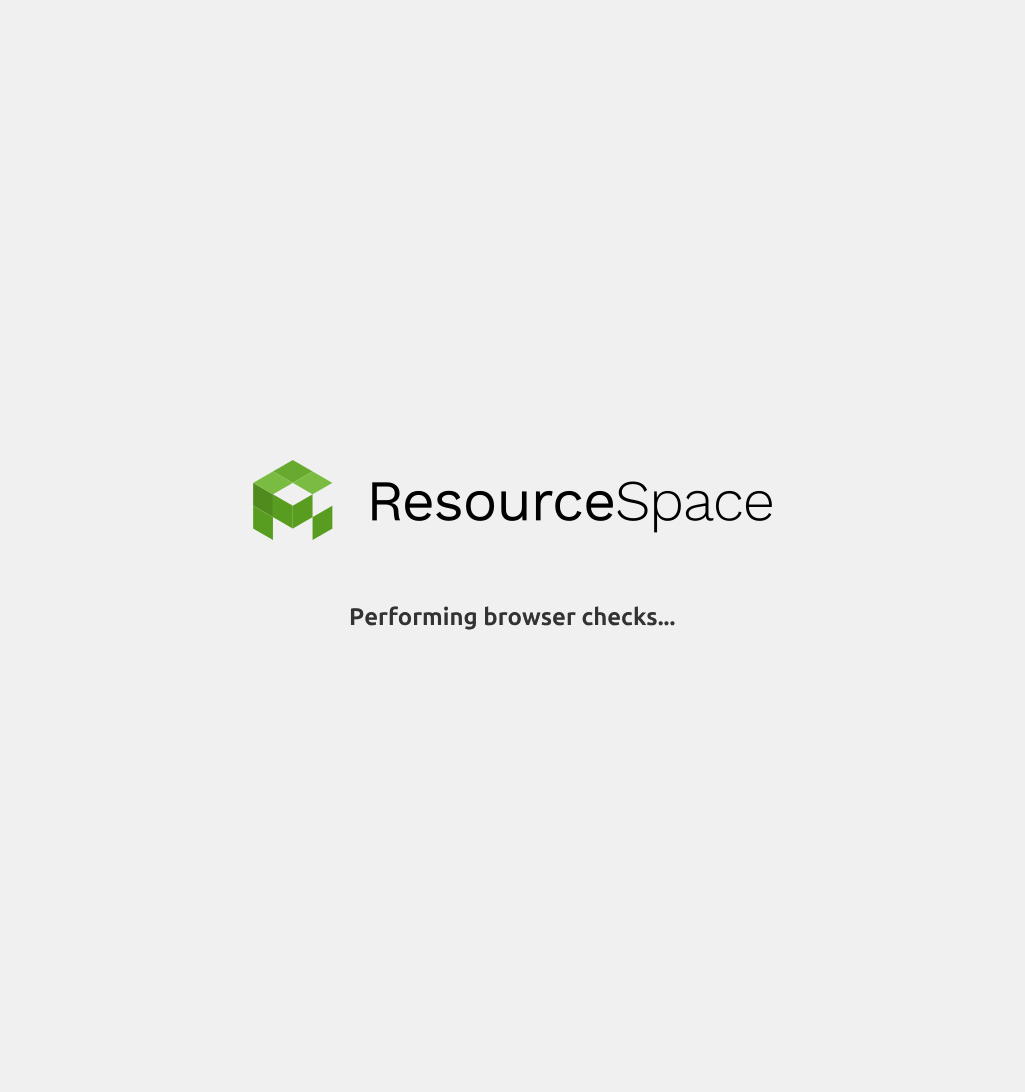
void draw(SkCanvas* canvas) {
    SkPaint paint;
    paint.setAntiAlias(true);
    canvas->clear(0xFFF0F0F0);
    canvas->drawImageRect(SkImages::DeferredFromEncodedData(SkData::MakeFromFileName("img1.png")), SkRect::MakeXYWH(253, 460, 519, 80), SkSamplingOptions());
    SkFont font1(fontMgr->matchFamilyStyle("Ubuntu", SkFontStyle::Bold()), 24);
    font1.setSubpixel(true);
    paint.setColor(0xFF333333);
    canvas->drawString("Performing browser checks...", 349, 625, font1, paint);
}
